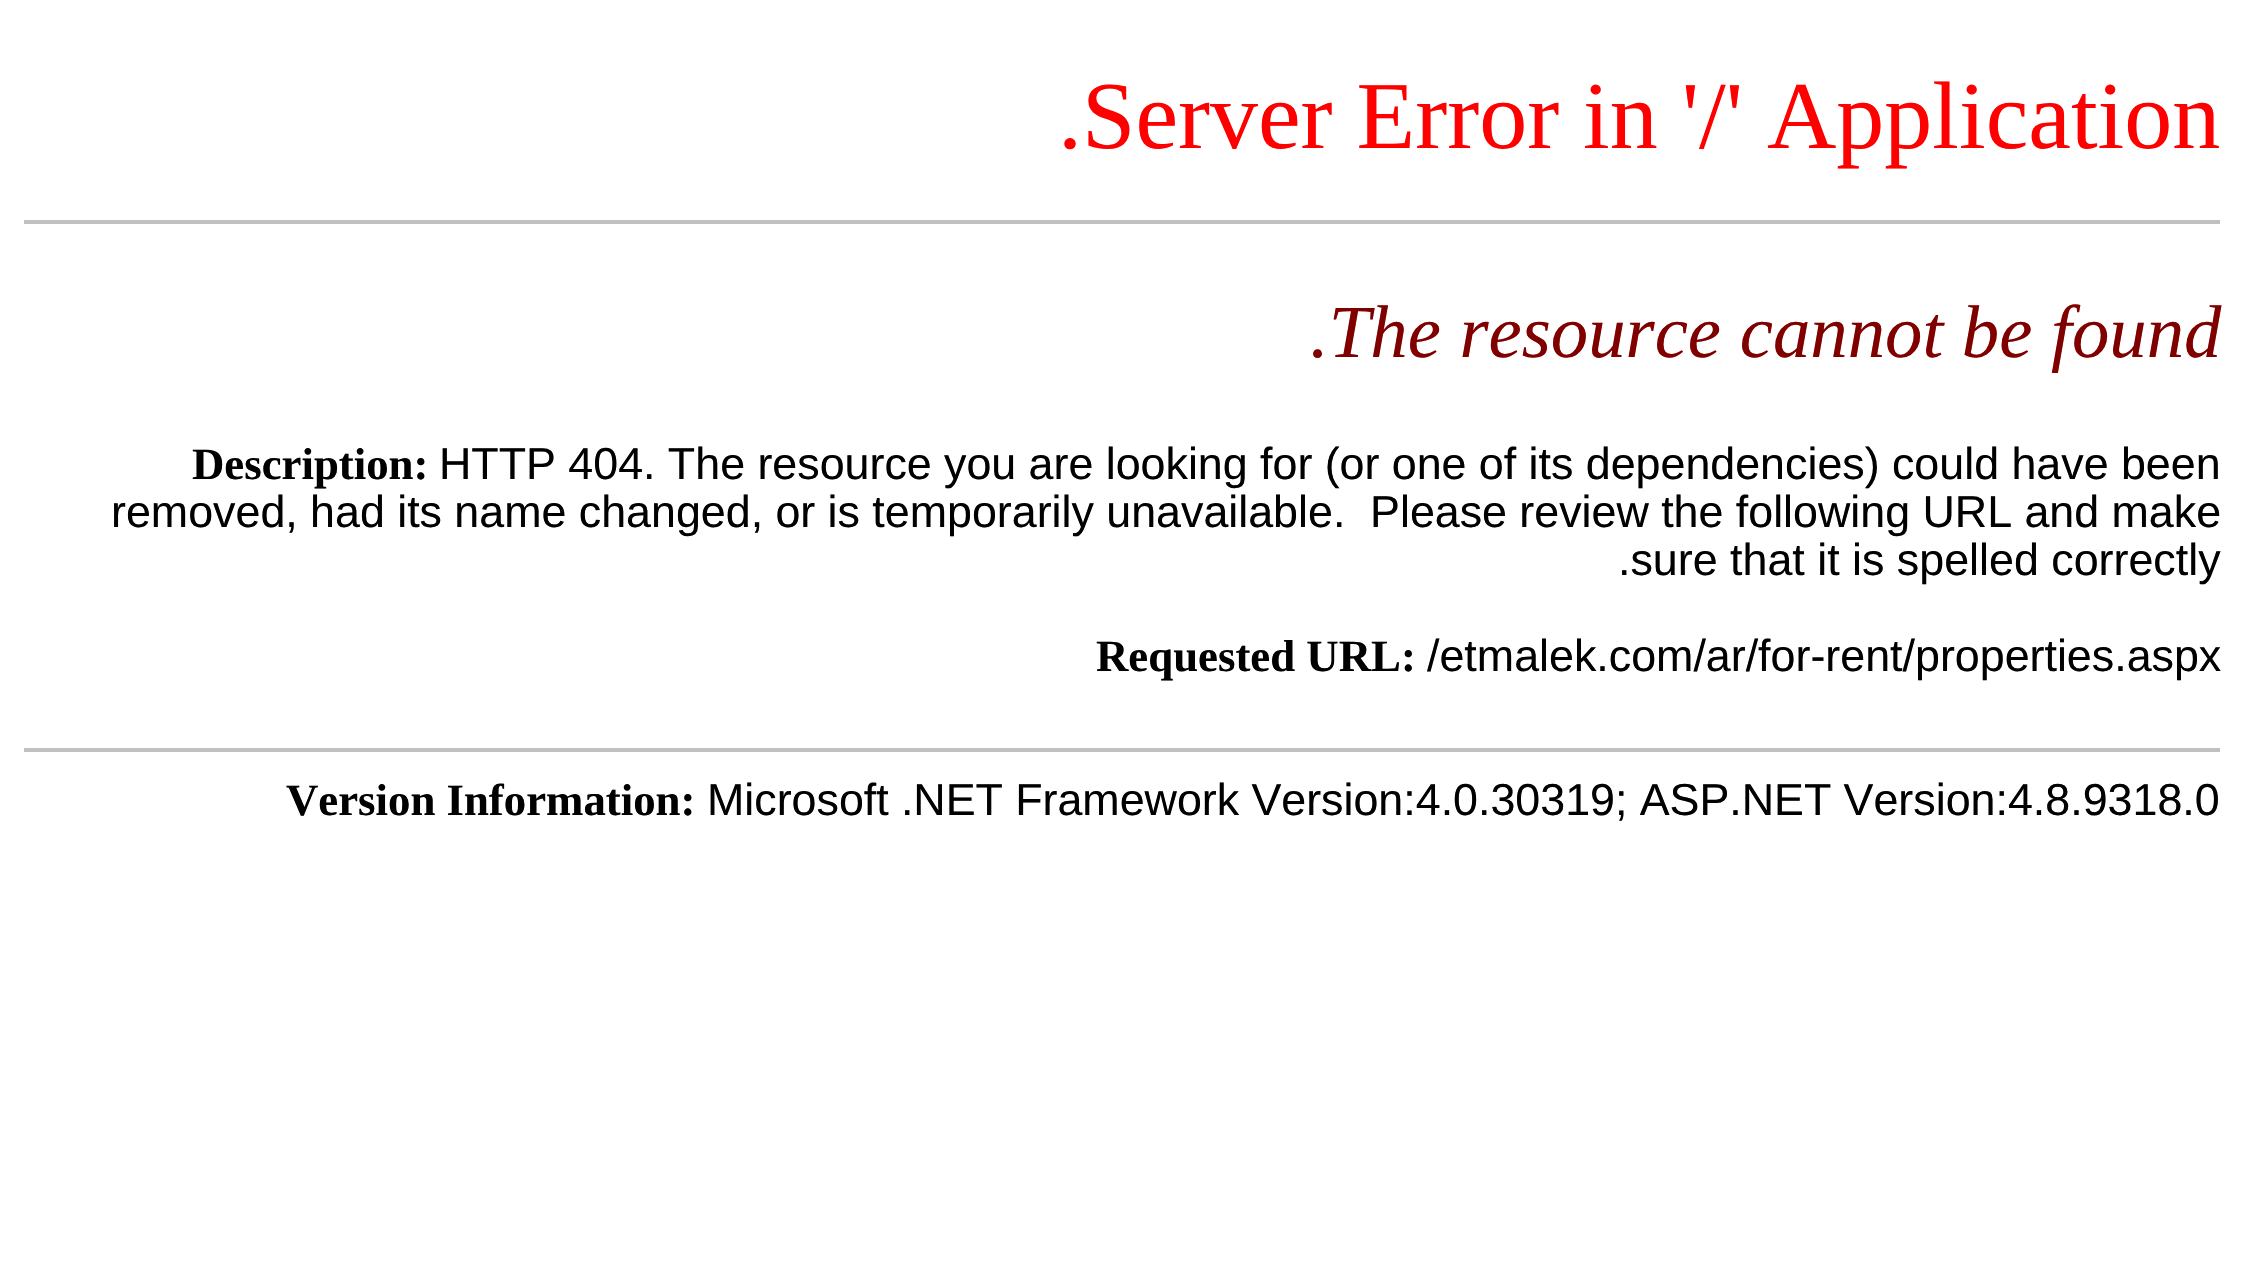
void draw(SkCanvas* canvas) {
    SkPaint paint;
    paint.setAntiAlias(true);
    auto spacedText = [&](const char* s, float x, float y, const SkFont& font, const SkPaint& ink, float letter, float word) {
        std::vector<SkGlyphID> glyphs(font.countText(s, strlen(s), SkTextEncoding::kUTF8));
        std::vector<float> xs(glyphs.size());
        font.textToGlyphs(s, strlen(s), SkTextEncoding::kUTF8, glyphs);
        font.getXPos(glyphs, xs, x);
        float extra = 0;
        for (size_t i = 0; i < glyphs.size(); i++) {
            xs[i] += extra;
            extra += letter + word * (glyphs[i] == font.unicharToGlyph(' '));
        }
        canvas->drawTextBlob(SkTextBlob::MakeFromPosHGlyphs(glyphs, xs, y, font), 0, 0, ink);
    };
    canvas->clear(0xFFFFFFFF);
    SkFont font1(fontMgr->matchFamilyStyle("Liberation Serif", SkFontStyle::Normal()), 96);
    font1.setSubpixel(true);
    paint.setColor(0xFFFF0000);
    canvas->drawString(".Server Error in '/' Application", 1058, 148, font1, paint);
    paint.setColor(0xFFC0C0C0);
    canvas->drawRect(SkRect::MakeXYWH(24, 220, 2196, 4), paint);
    SkFont font2(fontMgr->matchFamilyStyle("Liberation Serif", SkFontStyle::Italic()), 74.75f);
    font2.setSubpixel(true);
    paint.setColor(0xFF800000);
    canvas->drawString(".The resource cannot be found", 1310, 357, font2, paint);
    SkFont font3(fontMgr->matchFamilyStyle("Liberation Serif", SkFontStyle::Bold()), 44.8f);
    font3.setSubpixel(true);
    paint.setColor(0xFF000000);
    canvas->drawString("Description:", 192, 479, font3, paint);
    SkFont font4(fontMgr->matchFamilyStyle("Liberation Sans", SkFontStyle::Normal()), 44.8f);
    font4.setSubpixel(true);
    spacedText("HTTP 404. The resource you are looking for (or one of its dependencies) could have been", 439, 479, font4, paint, 0, -0.1f);
    spacedText("removed, had its name changed, or is temporarily unavailable.  Please review the following URL and make", 111, 527, font4, paint, 0, -0.1f);
    canvas->drawString(".sure that it is spelled correctly", 1618, 575, font4, paint);
    canvas->drawString("Requested URL:", 1096, 671, font3, paint);
    canvas->drawString("/etmalek.com/ar/for-rent/properties.aspx", 1427, 671, font4, paint);
    paint.setColor(0xFFC0C0C0);
    canvas->drawRect(SkRect::MakeXYWH(24, 748, 2196, 4), paint);
    paint.setColor(0xFF000000);
    canvas->drawString("Version Information:", 286, 815, font3, paint);
    spacedText("Microsoft .NET Framework Version:4.0.30319; ASP.NET Version:4.8.9318.0", 707, 815, font4, paint, 0, -0.25f);
}
